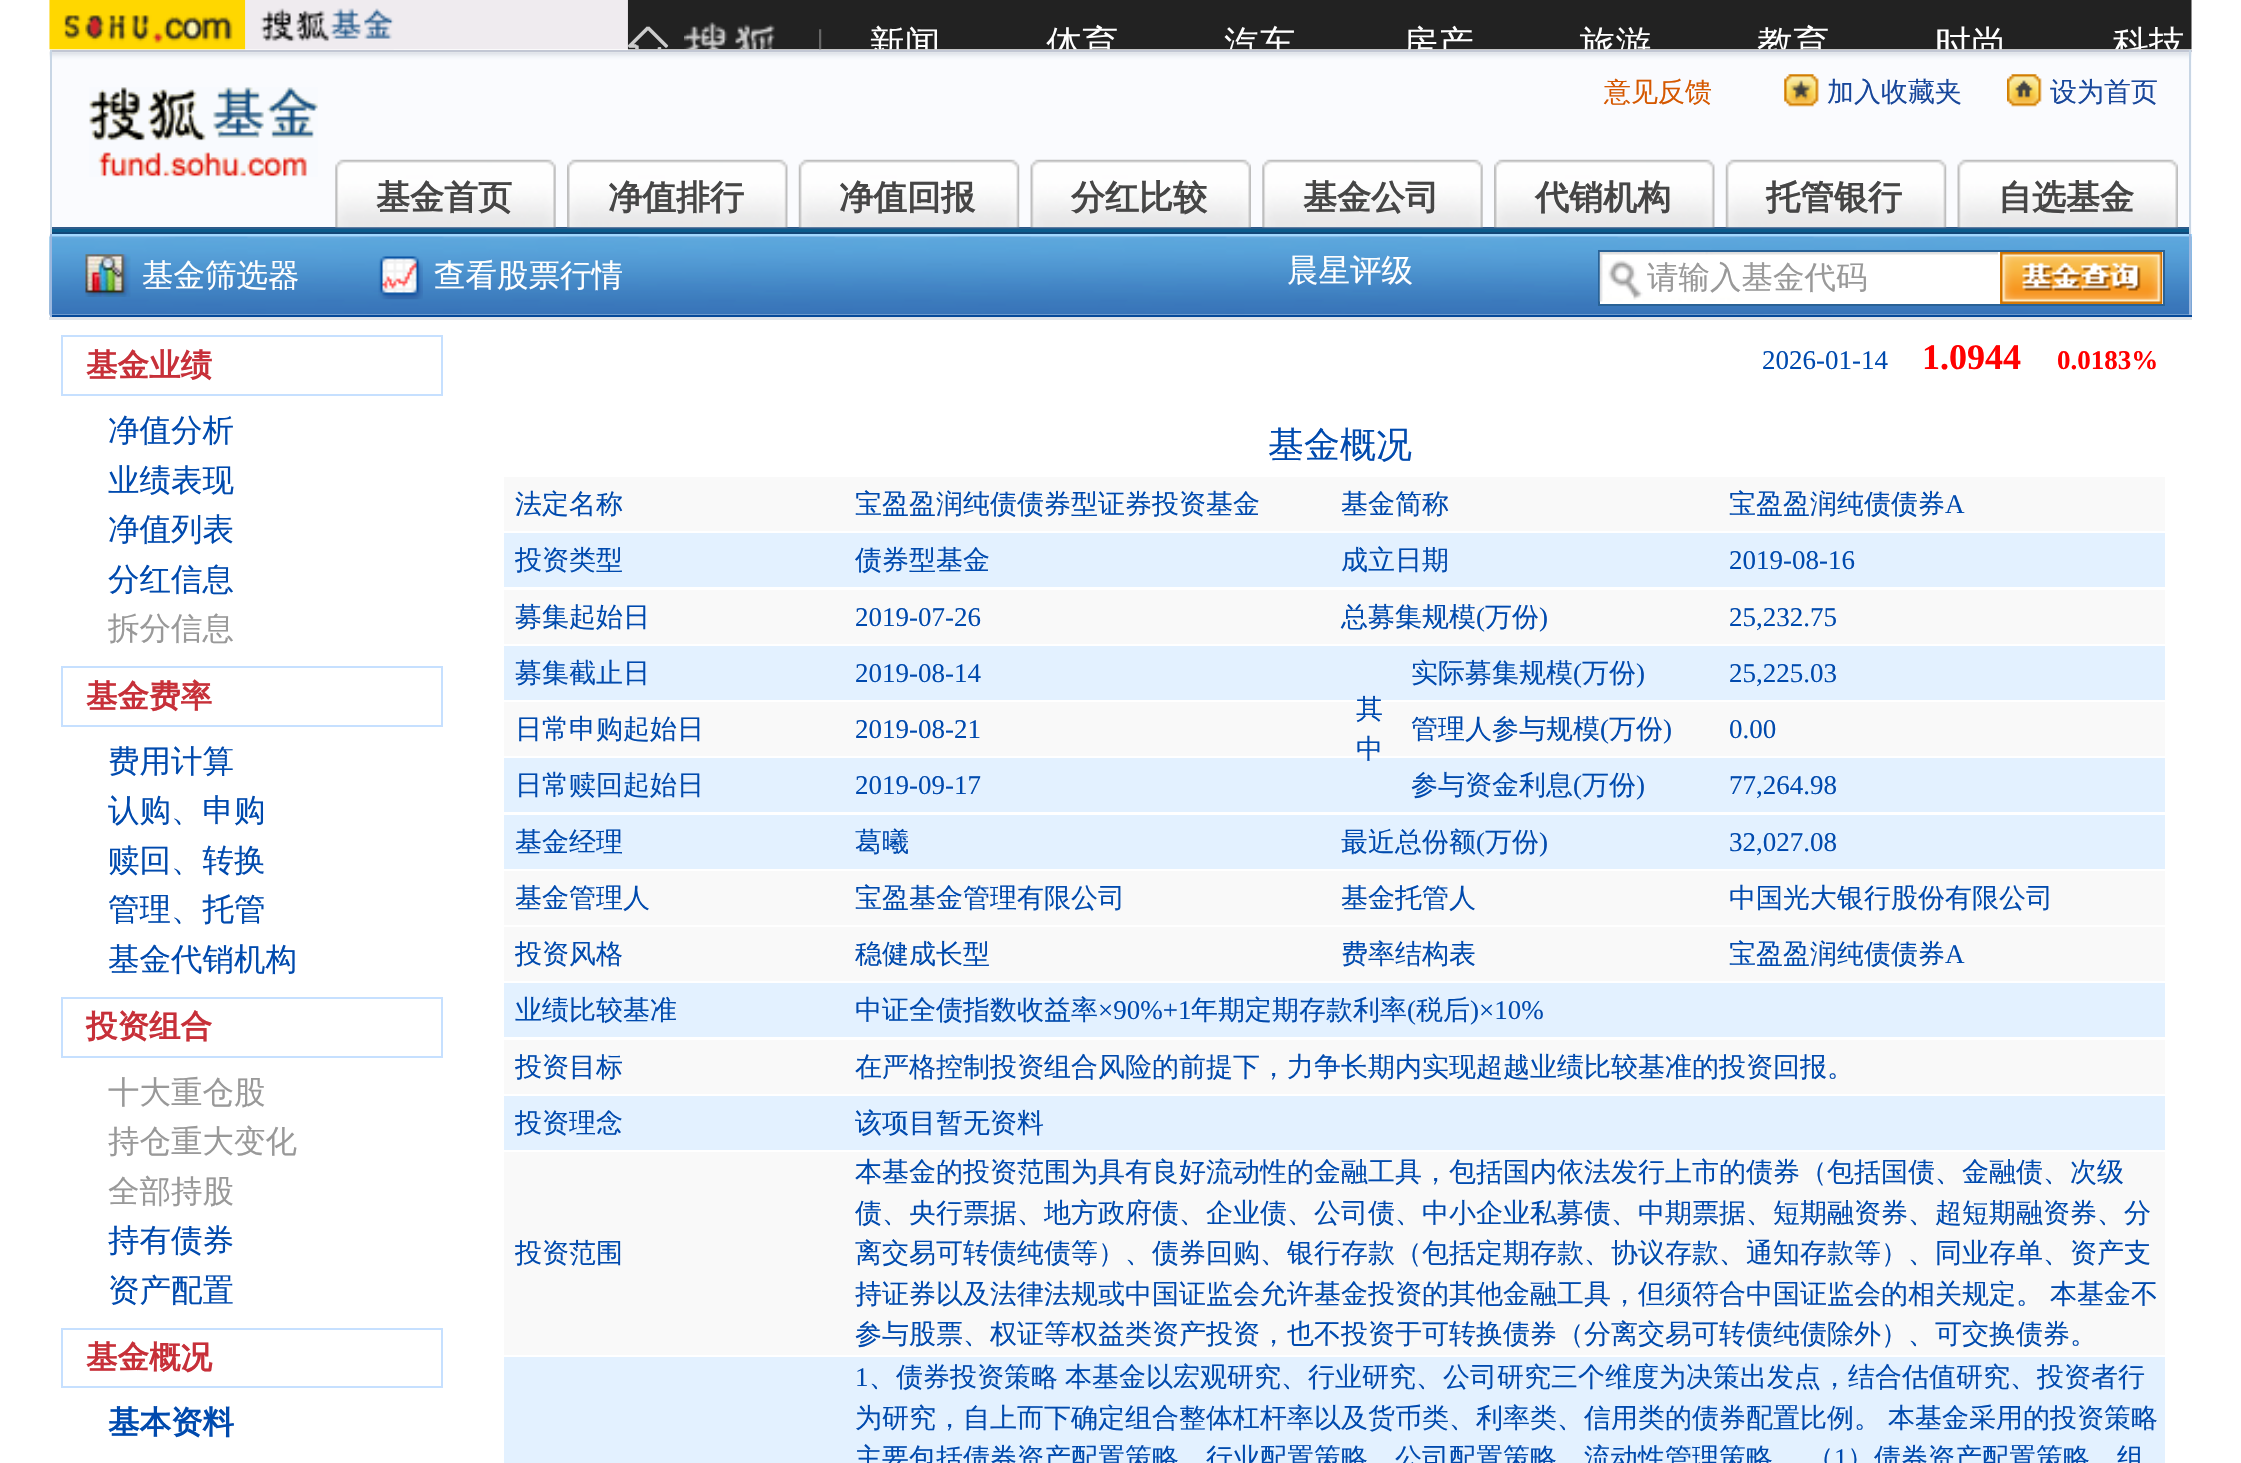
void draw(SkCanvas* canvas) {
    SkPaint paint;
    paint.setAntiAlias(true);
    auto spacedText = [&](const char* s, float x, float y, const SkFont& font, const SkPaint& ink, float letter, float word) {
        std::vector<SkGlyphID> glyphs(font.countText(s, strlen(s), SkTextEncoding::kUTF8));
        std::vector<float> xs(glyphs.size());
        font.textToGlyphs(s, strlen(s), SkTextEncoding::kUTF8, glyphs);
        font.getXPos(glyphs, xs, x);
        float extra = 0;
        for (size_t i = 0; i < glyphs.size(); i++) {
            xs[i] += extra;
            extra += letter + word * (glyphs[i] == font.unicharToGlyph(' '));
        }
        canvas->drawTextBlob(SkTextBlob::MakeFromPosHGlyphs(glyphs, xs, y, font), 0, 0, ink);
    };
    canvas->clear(0xFFFFFFFF);
    canvas->drawImageRect(SkImages::DeferredFromEncodedData(SkData::MakeFromFileName("img1.png")), SkRect::MakeXYWH(49, 0, 2143, 50), SkSamplingOptions());
    paint.setColor(0xFFFAFBFE);
    canvas->drawRect(SkRect::MakeXYWH(52, 52, 2140, 182), paint);
    canvas->drawImageRect(SkImages::DeferredFromEncodedData(SkData::MakeFromFileName("img2.png")), SkRect::MakeXYWH(49, 51, 2143, 9), SkSamplingOptions());
    paint.setColor(0xFFC2C7D4);
    canvas->drawRect(SkRect::MakeXYWH(50, 50, 2142, 2), paint);
    paint.setColor(0xFFC8D6E5);
    canvas->drawRect(SkRect::MakeXYWH(2189, 50, 2, 184), paint);
    canvas->drawRect(SkRect::MakeXYWH(50, 50, 2, 184), paint);
    canvas->drawImageRect(SkImages::DeferredFromEncodedData(SkData::MakeFromFileName("img3.png")), SkRect::MakeXYWH(89, 87, 229, 90), SkSamplingOptions());
    SkFont font1(fontMgr->matchFamilyStyle("WenQuanYi Zen Hei", SkFontStyle(500, SkFontStyle::kNormal_Width, SkFontStyle::kUpright_Slant)), 27);
    font1.setSubpixel(true);
    paint.setColor(0xFFD55800);
    canvas->drawString("意见反馈", 1604, 101, font1, paint);
    canvas->drawImageRect(SkImages::DeferredFromEncodedData(SkData::MakeFromFileName("img4.png")), SkRect::MakeXYWH(1784, 74, 35, 33), SkSamplingOptions());
    paint.setColor(0xFF18479B);
    canvas->drawString("加入收藏夹", 1827, 101, font1, paint);
    canvas->drawImageRect(SkImages::DeferredFromEncodedData(SkData::MakeFromFileName("img5.png")), SkRect::MakeXYWH(2007, 74, 35, 33), SkSamplingOptions());
    canvas->drawString("设为首页", 2050, 101, font1, paint);
    paint.setColor(0xFF2E5B8B);
    canvas->drawRect(SkRect::MakeXYWH(52, 227, 2137, 2), paint);
    canvas->drawImageRect(SkImages::DeferredFromEncodedData(SkData::MakeFromFileName("img6.png")), SkRect::MakeXYWH(335, 159, 221, 69), SkSamplingOptions());
    SkFont font2(fontMgr->matchFamilyStyle("WenQuanYi Zen Hei", SkFontStyle::Bold()), 34);
    font2.setSubpixel(true);
    paint.setColor(0xFF464646);
    canvas->drawString("基金首页", 376, 209, font2, paint);
    canvas->drawImageRect(SkImages::DeferredFromEncodedData(SkData::MakeFromFileName("img7.png")), SkRect::MakeXYWH(567, 159, 221, 69), SkSamplingOptions());
    canvas->drawString("净值排行", 608, 209, font2, paint);
    canvas->drawImageRect(SkImages::DeferredFromEncodedData(SkData::MakeFromFileName("img8.png")), SkRect::MakeXYWH(798, 159, 222, 69), SkSamplingOptions());
    canvas->drawString("净值回报", 839, 209, font2, paint);
    canvas->drawImageRect(SkImages::DeferredFromEncodedData(SkData::MakeFromFileName("img9.png")), SkRect::MakeXYWH(1030, 159, 221, 69), SkSamplingOptions());
    canvas->drawString("分红比较", 1071, 209, font2, paint);
    canvas->drawImageRect(SkImages::DeferredFromEncodedData(SkData::MakeFromFileName("img10.png")), SkRect::MakeXYWH(1262, 159, 221, 69), SkSamplingOptions());
    canvas->drawString("基金公司", 1303, 209, font2, paint);
    canvas->drawImageRect(SkImages::DeferredFromEncodedData(SkData::MakeFromFileName("img11.png")), SkRect::MakeXYWH(1494, 159, 221, 69), SkSamplingOptions());
    canvas->drawString("代销机构", 1535, 209, font2, paint);
    canvas->drawImageRect(SkImages::DeferredFromEncodedData(SkData::MakeFromFileName("img12.png")), SkRect::MakeXYWH(1725, 159, 222, 69), SkSamplingOptions());
    canvas->drawString("托管银行", 1766, 209, font2, paint);
    canvas->drawImageRect(SkImages::DeferredFromEncodedData(SkData::MakeFromFileName("img13.png")), SkRect::MakeXYWH(1957, 159, 221, 69), SkSamplingOptions());
    canvas->drawString("自选基金", 1998, 209, font2, paint);
    paint.setColor(0xFF0B5C8C);
    canvas->drawRect(SkRect::MakeXYWH(52, 229, 2137, 3), paint);
    paint.setColor(0xFF124879);
    canvas->drawRect(SkRect::MakeXYWH(52, 232, 2137, 2), paint);
    paint.setColor(0xFFBDD4F1);
    canvas->drawRect(SkRect::MakeXYWH(52, 236, 2140, 79), paint);
    canvas->drawImageRect(SkImages::DeferredFromEncodedData(SkData::MakeFromFileName("img14.png")), SkRect::MakeXYWH(49, 234, 2143, 83), SkSamplingOptions());
    paint.setColor(0xFFA1D8FF);
    canvas->drawRect(SkRect::MakeXYWH(50, 234, 2142, 2), paint);
    paint.setColor(0xFF9BB7DE);
    canvas->drawRect(SkRect::MakeXYWH(2189, 234, 2, 83), paint);
    paint.setColor(0xFF05499A);
    canvas->drawRect(SkRect::MakeXYWH(50, 315, 2142, 2), paint);
    paint.setColor(0xFF9BB7DE);
    canvas->drawRect(SkRect::MakeXYWH(50, 234, 2, 83), paint);
    canvas->drawImageRect(SkImages::DeferredFromEncodedData(SkData::MakeFromFileName("img15.png")), SkRect::MakeXYWH(85, 254, 46, 43), SkSamplingOptions());
    SkFont font3(fontMgr->matchFamilyStyle("WenQuanYi Zen Hei", SkFontStyle(500, SkFontStyle::kNormal_Width, SkFontStyle::kUpright_Slant)), 31.5f);
    font3.setSubpixel(true);
    paint.setColor(0xFFFFFFFF);
    canvas->drawString("基金筛选器", 142, 286, font3, paint);
    canvas->drawImageRect(SkImages::DeferredFromEncodedData(SkData::MakeFromFileName("img16.png")), SkRect::MakeXYWH(378, 256, 45, 44), SkSamplingOptions());
    canvas->drawString("查看股票行情", 434, 286, font3, paint);
    canvas->drawString("晨星评级", 1287, 281, font3, paint);
    canvas->drawRect(SkRect::MakeXYWH(1599, 251, 565, 54), paint);
    paint.setStyle(SkPaint::kStroke_Style);
    paint.setStrokeWidth(2);
    paint.setColor(0xFF296296);
    canvas->drawRect(SkRect::MakeXYWH(1599, 251, 565, 54), paint);
    canvas->drawImageRect(SkImages::DeferredFromEncodedData(SkData::MakeFromFileName("img17.png")), SkRect::MakeXYWH(1599, 252, 399, 50), SkSamplingOptions());
    paint.setStyle(SkPaint::kFill_Style);
    paint.setColor(0xFF999999);
    canvas->drawString("请输入基金代码", 1647, 288, font3, paint);
    paint.setColor(0xFFFF9900);
    canvas->drawRect(SkRect::MakeXYWH(2000, 252, 162, 52), paint);
    canvas->drawImageRect(SkImages::DeferredFromEncodedData(SkData::MakeFromFileName("img18.png")), SkRect::MakeXYWH(2000, 252, 163, 52), SkSamplingOptions());
    paint.setColor(0xFFE0E4EA);
    canvas->drawRect(SkRect::MakeXYWH(49, 317, 2143, 3), paint);
    paint.setStyle(SkPaint::kStroke_Style);
    paint.setColor(0xFFC6E0FF);
    canvas->drawRect(SkRect::MakeXYWH(62, 336, 380, 59), paint);
    SkFont font4(fontMgr->matchFamilyStyle("WenQuanYi Zen Hei", SkFontStyle::Bold()), 31.5f);
    font4.setSubpixel(true);
    paint.setStyle(SkPaint::kFill_Style);
    paint.setColor(0xFFC73039);
    canvas->drawString("基金业绩", 86, 376, font4, paint);
    paint.setColor(0xFF004AAE);
    canvas->drawString("净值分析", 108, 441, font3, paint);
    canvas->drawString("业绩表现", 108, 491, font3, paint);
    canvas->drawString("净值列表", 108, 540, font3, paint);
    canvas->drawString("分红信息", 108, 590, font3, paint);
    paint.setColor(0xFF999999);
    canvas->drawString("拆分信息", 108, 639, font3, paint);
    paint.setStyle(SkPaint::kStroke_Style);
    paint.setColor(0xFFC6E0FF);
    canvas->drawRect(SkRect::MakeXYWH(62, 667, 380, 59), paint);
    paint.setStyle(SkPaint::kFill_Style);
    paint.setColor(0xFFC73039);
    canvas->drawString("基金费率", 86, 707, font4, paint);
    paint.setColor(0xFF004AAE);
    canvas->drawString("费用计算", 108, 772, font3, paint);
    canvas->drawString("认购、申购", 108, 821, font3, paint);
    canvas->drawString("赎回、转换", 108, 871, font3, paint);
    canvas->drawString("管理、托管", 108, 920, font3, paint);
    canvas->drawString("基金代销机构", 108, 970, font3, paint);
    paint.setStyle(SkPaint::kStroke_Style);
    paint.setColor(0xFFC6E0FF);
    canvas->drawRect(SkRect::MakeXYWH(62, 998, 380, 59), paint);
    paint.setStyle(SkPaint::kFill_Style);
    paint.setColor(0xFFC73039);
    canvas->drawString("投资组合", 86, 1037, font4, paint);
    paint.setColor(0xFF999999);
    canvas->drawString("十大重仓股", 108, 1103, font3, paint);
    canvas->drawString("持仓重大变化", 108, 1152, font3, paint);
    canvas->drawString("全部持股", 108, 1202, font3, paint);
    paint.setColor(0xFF004AAE);
    canvas->drawString("持有债券", 108, 1251, font3, paint);
    canvas->drawString("资产配置", 108, 1301, font3, paint);
    paint.setStyle(SkPaint::kStroke_Style);
    paint.setColor(0xFFC6E0FF);
    canvas->drawRect(SkRect::MakeXYWH(62, 1329, 380, 58), paint);
    paint.setStyle(SkPaint::kFill_Style);
    paint.setColor(0xFFC73039);
    canvas->drawString("基金概况", 86, 1368, font4, paint);
    paint.setColor(0xFF004AAE);
    canvas->drawString("基本资料", 108, 1433, font4, paint);
    SkFont font5(fontMgr->matchFamilyStyle("Liberation Serif", SkFontStyle::Normal()), 27);
    font5.setSubpixel(true);
    canvas->drawString("2026-01-14", 1762, 369, font5, paint);
    SkFont font6(fontMgr->matchFamilyStyle("Liberation Serif", SkFontStyle::Bold()), 36);
    font6.setSubpixel(true);
    paint.setColor(0xFFFF0000);
    canvas->drawString("1.0944", 1922, 369, font6, paint);
    SkFont font7(fontMgr->matchFamilyStyle("Liberation Serif", SkFontStyle::Bold()), 27);
    font7.setSubpixel(true);
    canvas->drawString("0.0183%", 2057, 369, font7, paint);
    SkFont font8(fontMgr->matchFamilyStyle("WenQuanYi Zen Hei", SkFontStyle(500, SkFontStyle::kNormal_Width, SkFontStyle::kUpright_Slant)), 36);
    font8.setSubpixel(true);
    paint.setColor(0xFF004AAE);
    canvas->drawString("基金概况", 1268, 457, font8, paint);
    paint.setColor(0xFFF9F9F9);
    canvas->drawRect(SkRect::MakeXYWH(504, 477, 1661, 54), paint);
    paint.setColor(0xFF004AAE);
    canvas->drawString("法定名称", 515, 513, font1, paint);
    canvas->drawString("宝盈盈润纯债债券型证券投资基金", 855, 513, font1, paint);
    canvas->drawString("基金简称", 1341, 513, font1, paint);
    canvas->drawString("宝盈盈润纯债债券", 1729, 513, font1, paint);
    canvas->drawString("A", 1945, 513, font5, paint);
    paint.setColor(0xFFE3F1FF);
    canvas->drawRect(SkRect::MakeXYWH(504, 533, 1661, 54), paint);
    paint.setColor(0xFF004AAE);
    canvas->drawString("投资类型", 515, 569, font1, paint);
    canvas->drawString("债券型基金", 855, 569, font1, paint);
    canvas->drawString("成立日期", 1341, 569, font1, paint);
    canvas->drawString("2019-08-16", 1729, 569, font5, paint);
    paint.setColor(0xFFF9F9F9);
    canvas->drawRect(SkRect::MakeXYWH(504, 590, 1661, 54), paint);
    paint.setColor(0xFF004AAE);
    canvas->drawString("募集起始日", 515, 626, font1, paint);
    canvas->drawString("2019-07-26", 855, 626, font5, paint);
    canvas->drawString("总募集规模", 1341, 626, font1, paint);
    canvas->drawString("(", 1476, 626, font5, paint);
    canvas->drawString("万份", 1485, 626, font1, paint);
    canvas->drawString(")", 1539, 626, font5, paint);
    canvas->drawString("25,232.75", 1729, 626, font5, paint);
    paint.setColor(0xFFE3F1FF);
    canvas->drawRect(SkRect::MakeXYWH(504, 646, 1661, 54), paint);
    paint.setColor(0xFF004AAE);
    canvas->drawString("募集截止日", 515, 682, font1, paint);
    canvas->drawString("2019-08-14", 855, 682, font5, paint);
    canvas->drawString("实际募集规模", 1411, 682, font1, paint);
    canvas->drawString("(", 1573, 682, font5, paint);
    canvas->drawString("万份", 1582, 682, font1, paint);
    canvas->drawString(")", 1636, 682, font5, paint);
    canvas->drawString("25,225.03", 1729, 682, font5, paint);
    paint.setColor(0xFFF9F9F9);
    canvas->drawRect(SkRect::MakeXYWH(504, 702, 1661, 54), paint);
    paint.setColor(0xFF004AAE);
    canvas->drawString("其", 1356, 718, font1, paint);
    paint.setColor(0xFFE3F1FF);
    canvas->drawRect(SkRect::MakeXYWH(504, 758, 1661, 54), paint);
    paint.setColor(0xFF004AAE);
    canvas->drawString("中", 1356, 758, font1, paint);
    canvas->drawString("日常申购起始日", 515, 738, font1, paint);
    canvas->drawString("2019-08-21", 855, 738, font5, paint);
    canvas->drawString("管理人参与规模", 1411, 738, font1, paint);
    canvas->drawString("(", 1600, 738, font5, paint);
    canvas->drawString("万份", 1609, 738, font1, paint);
    canvas->drawString(")", 1663, 738, font5, paint);
    canvas->drawString("0.00", 1729, 738, font5, paint);
    canvas->drawString("日常赎回起始日", 515, 794, font1, paint);
    canvas->drawString("2019-09-17", 855, 794, font5, paint);
    canvas->drawString("参与资金利息", 1411, 794, font1, paint);
    canvas->drawString("(", 1573, 794, font5, paint);
    canvas->drawString("万份", 1582, 794, font1, paint);
    canvas->drawString(")", 1636, 794, font5, paint);
    canvas->drawString("77,264.98", 1729, 794, font5, paint);
    paint.setColor(0xFFE3F1FF);
    canvas->drawRect(SkRect::MakeXYWH(504, 815, 1661, 54), paint);
    paint.setColor(0xFF004AAE);
    canvas->drawString("基金经理", 515, 851, font1, paint);
    canvas->drawString("葛曦", 855, 851, font1, paint);
    canvas->drawString("最近总份额", 1341, 851, font1, paint);
    canvas->drawString("(", 1476, 851, font5, paint);
    canvas->drawString("万份", 1485, 851, font1, paint);
    canvas->drawString(")", 1539, 851, font5, paint);
    canvas->drawString("32,027.08", 1729, 851, font5, paint);
    paint.setColor(0xFFF9F9F9);
    canvas->drawRect(SkRect::MakeXYWH(504, 871, 1661, 54), paint);
    paint.setColor(0xFF004AAE);
    canvas->drawString("基金管理人", 515, 907, font1, paint);
    canvas->drawString("宝盈基金管理有限公司", 855, 907, font1, paint);
    canvas->drawString("基金托管人", 1341, 907, font1, paint);
    canvas->drawString("中国光大银行股份有限公司", 1729, 907, font1, paint);
    paint.setColor(0xFFF9F9F9);
    canvas->drawRect(SkRect::MakeXYWH(504, 927, 1661, 54), paint);
    paint.setColor(0xFF004AAE);
    canvas->drawString("投资风格", 515, 963, font1, paint);
    canvas->drawString("稳健成长型", 855, 963, font1, paint);
    canvas->drawString("费率结构表", 1341, 963, font1, paint);
    canvas->drawString("宝盈盈润纯债债券", 1729, 963, font1, paint);
    canvas->drawString("A", 1945, 963, font5, paint);
    paint.setColor(0xFFE3F1FF);
    canvas->drawRect(SkRect::MakeXYWH(504, 983, 1661, 54), paint);
    paint.setColor(0xFF004AAE);
    canvas->drawString("业绩比较基准", 515, 1019, font1, paint);
    canvas->drawString("中证全债指数收益率", 855, 1019, font1, paint);
    canvas->drawString("×90%+1", 1098, 1019, font5, paint);
    canvas->drawString("年期定期存款利率", 1191, 1019, font1, paint);
    canvas->drawString("(", 1407, 1019, font5, paint);
    canvas->drawString("税后", 1416, 1019, font1, paint);
    canvas->drawString(")×10%", 1470, 1019, font5, paint);
    paint.setColor(0xFFF9F9F9);
    canvas->drawRect(SkRect::MakeXYWH(504, 1040, 1661, 54), paint);
    paint.setColor(0xFF004AAE);
    canvas->drawString("投资目标", 515, 1076, font1, paint);
    canvas->drawString("在严格控制投资组合风险的前提下，力争长期内实现超越业绩比较基准的投资回报。", 855, 1076, font1, paint);
    paint.setColor(0xFFE3F1FF);
    canvas->drawRect(SkRect::MakeXYWH(504, 1096, 1661, 54), paint);
    paint.setColor(0xFF004AAE);
    canvas->drawString("投资理念", 515, 1132, font1, paint);
    canvas->drawString("该项目暂无资料", 855, 1132, font1, paint);
    paint.setColor(0xFFF9F9F9);
    canvas->drawRect(SkRect::MakeXYWH(504, 1152, 1661, 203), paint);
    paint.setColor(0xFF004AAE);
    canvas->drawString("投资范围", 515, 1262, font1, paint);
    canvas->drawString("本基金的投资范围为具有良好流动性的金融工具，包括国内依法发行上市的债券（包括国债、金融债、次级", 855, 1181, font1, paint);
    canvas->drawString("债、央行票据、地方政府债、企业债、公司债、中小企业私募债、中期票据、短期融资券、超短期融资券、分", 855, 1222, font1, paint);
    canvas->drawString("离交易可转债纯债等）、债券回购、银行存款（包括定期存款、协议存款、通知存款等）、同业存单、资产支", 855, 1262, font1, paint);
    spacedText("持证券以及法律法规或中国证监会允许基金投资的其他金融工具，但须符合中国证监会的相关规定。 本基金不", 855, 1303, font1, paint, 0, -1);
    canvas->drawString("参与股票、权证等权益类资产投资，也不投资于可转换债券（分离交易可转债纯债除外）、可交换债券。", 855, 1343, font1, paint);
    paint.setColor(0xFFE3F1FF);
    canvas->drawRect(SkRect::MakeXYWH(504, 1357, 1661, 106), paint);
    paint.setColor(0xFF004AAE);
    canvas->drawString("1", 855, 1386, font5, paint);
    spacedText("、债券投资策略 本基金以宏观研究、行业研究、公司研究三个维度为决策出发点，结合估值研究、投资者行", 869, 1386, font1, paint, 0, -1);
    spacedText("为研究，自上而下确定组合整体杠杆率以及货币类、利率类、信用类的债券配置比例。 本基金采用的投资策略", 855, 1427, font1, paint, 0, -1);
    spacedText("主要包括债券资产配置策略、行业配置策略、公司配置策略、流动性管理策略。 （", 855, 1467, font1, paint, 0, -1);
    canvas->drawString("1", 1834, 1467, font5, paint);
    canvas->drawString("）债券资产配置策略。组", 1847, 1467, font1, paint);
}
